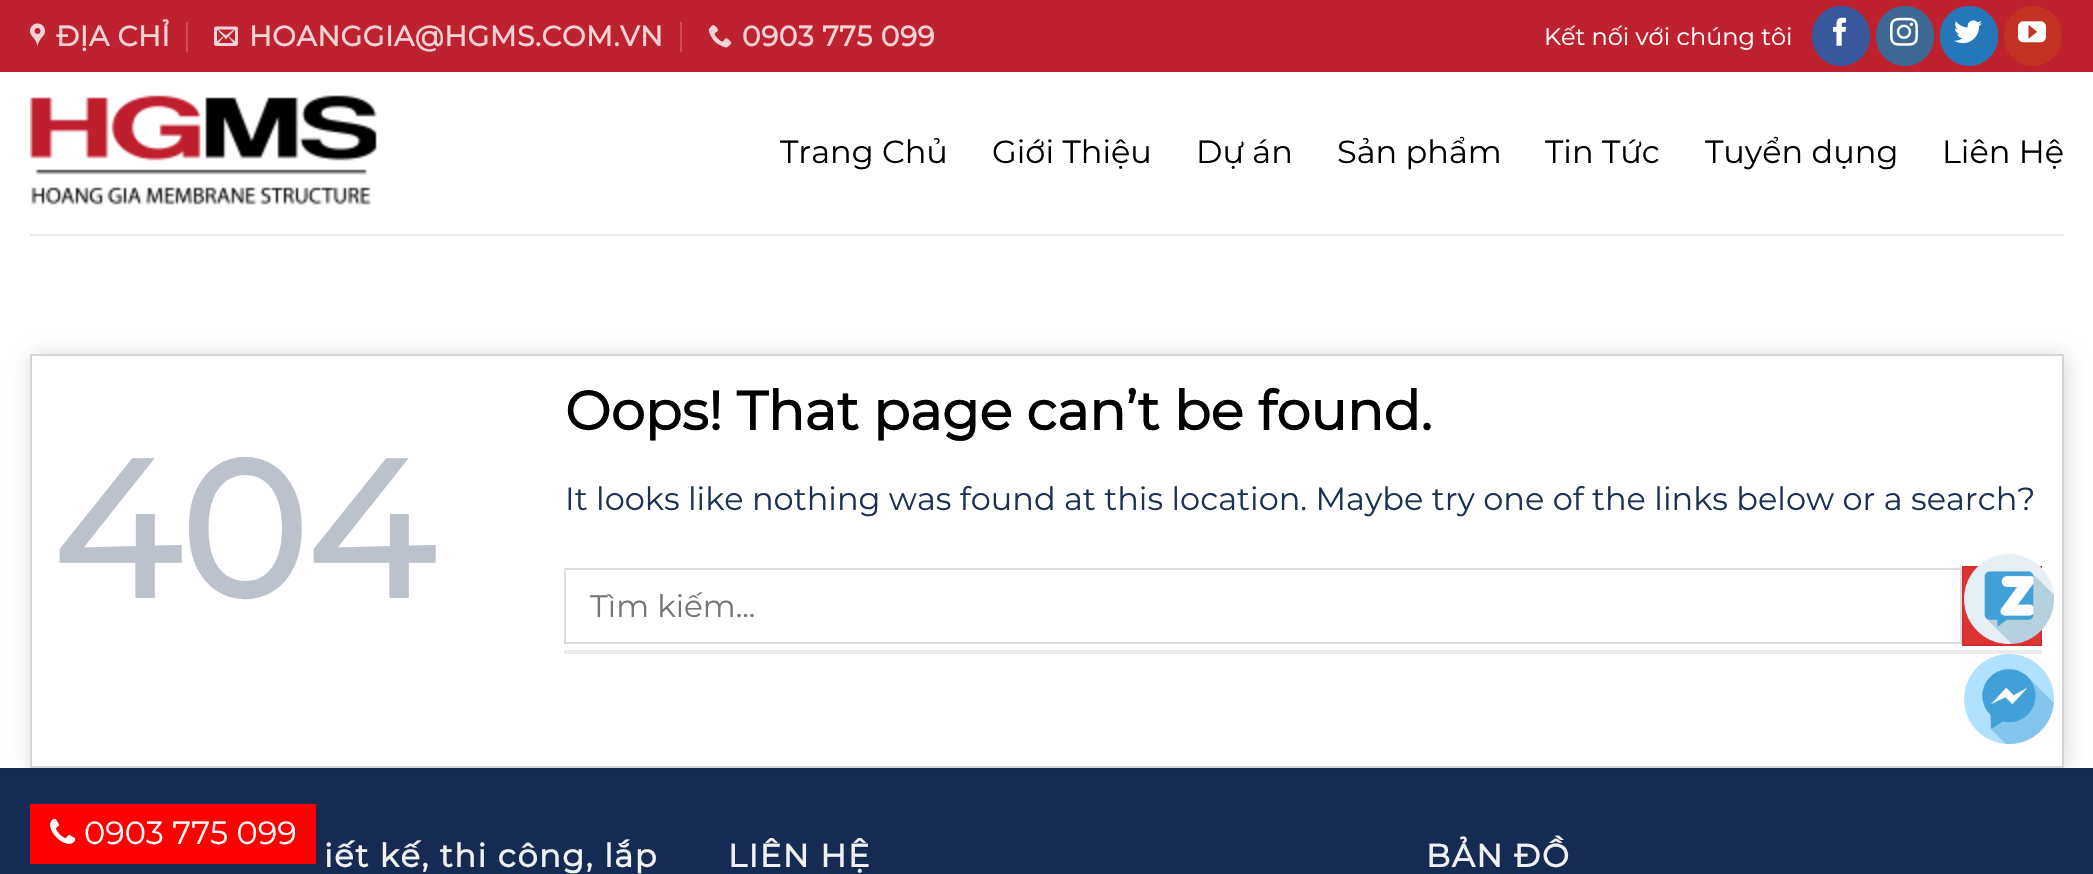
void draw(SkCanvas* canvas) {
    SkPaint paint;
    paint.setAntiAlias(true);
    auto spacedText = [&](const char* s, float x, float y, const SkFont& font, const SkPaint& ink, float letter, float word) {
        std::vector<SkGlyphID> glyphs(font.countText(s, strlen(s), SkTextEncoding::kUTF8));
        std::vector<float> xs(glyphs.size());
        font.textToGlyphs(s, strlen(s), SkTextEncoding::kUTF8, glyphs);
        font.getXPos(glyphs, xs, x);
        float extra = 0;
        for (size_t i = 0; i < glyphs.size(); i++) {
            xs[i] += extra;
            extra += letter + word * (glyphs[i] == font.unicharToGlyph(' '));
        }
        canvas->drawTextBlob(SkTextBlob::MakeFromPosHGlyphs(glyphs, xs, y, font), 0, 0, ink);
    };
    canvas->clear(0xFFFFFFFF);
    paint.setColor(0xFFBE222E);
    canvas->drawRect(SkRect::MakeXYWH(0, 0, 2093, 72), paint);
    canvas->drawImageRect(SkImages::DeferredFromEncodedData(SkData::MakeFromFileName("img1.png")), SkRect::MakeXYWH(30, 23, 15, 24), SkSamplingOptions());
    SkFont font1(fontMgr->matchFamilyStyle("Montserrat", SkFontStyle::Bold()), 28);
    font1.setSubpixel(true);
    paint.setColor(0xFFF2D3D5);
    spacedText("ĐỊA CHỈ", 56, 46, font1, paint, 0.6f, 0);
    paint.setColor(0xFFCB4E58);
    canvas->drawRect(SkRect::MakeXYWH(186, 22, 2, 30), paint);
    canvas->drawImageRect(SkImages::DeferredFromEncodedData(SkData::MakeFromFileName("img2.png")), SkRect::MakeXYWH(214, 26, 24, 20), SkSamplingOptions());
    paint.setColor(0xFFF2D3D5);
    spacedText("HOANGGIA@HGMS.COM.VN", 249, 46, font1, paint, 0.6f, 0);
    paint.setColor(0xFFCB4E58);
    canvas->drawRect(SkRect::MakeXYWH(680, 22, 2, 30), paint);
    canvas->drawImageRect(SkImages::DeferredFromEncodedData(SkData::MakeFromFileName("img3.png")), SkRect::MakeXYWH(708, 25, 24, 23), SkSamplingOptions());
    paint.setColor(0xFFF2D3D5);
    spacedText("0903 775 099", 742, 46, font1, paint, 0.6f, 0);
    SkFont font2(fontMgr->matchFamilyStyle("Montserrat", SkFontStyle(100, SkFontStyle::kNormal_Width, SkFontStyle::kUpright_Slant)), 24);
    font2.setSubpixel(true);
    paint.setColor(0xFFFFFFFF);
    canvas->drawString("Kết nối với chúng tôi", 1544, 45, font2, paint);
    paint.setColor(0xFF3A589D);
    canvas->drawRoundRect(SkRect::MakeXYWH(1813, 7, 56, 58), 28, 28, paint);
    paint.setStyle(SkPaint::kStroke_Style);
    paint.setStrokeWidth(2);
    canvas->drawRoundRect(SkRect::MakeXYWH(1813, 7, 56, 58), 28, 28, paint);
    canvas->drawImageRect(SkImages::DeferredFromEncodedData(SkData::MakeFromFileName("img4.png")), SkRect::MakeXYWH(1833, 17, 14, 29), SkSamplingOptions());
    paint.setStyle(SkPaint::kFill_Style);
    paint.setColor(0xFF3B6994);
    canvas->drawRoundRect(SkRect::MakeXYWH(1877, 7, 56, 58), 28, 28, paint);
    paint.setStyle(SkPaint::kStroke_Style);
    canvas->drawRoundRect(SkRect::MakeXYWH(1877, 7, 56, 58), 28, 28, paint);
    canvas->drawImageRect(SkImages::DeferredFromEncodedData(SkData::MakeFromFileName("img5.png")), SkRect::MakeXYWH(1890, 17, 28, 29), SkSamplingOptions());
    paint.setStyle(SkPaint::kFill_Style);
    paint.setColor(0xFF2478BA);
    canvas->drawRoundRect(SkRect::MakeXYWH(1941, 7, 56, 58), 28, 28, paint);
    paint.setStyle(SkPaint::kStroke_Style);
    canvas->drawRoundRect(SkRect::MakeXYWH(1941, 7, 56, 58), 28, 28, paint);
    canvas->drawImageRect(SkImages::DeferredFromEncodedData(SkData::MakeFromFileName("img6.png")), SkRect::MakeXYWH(1954, 20, 28, 24), SkSamplingOptions());
    paint.setStyle(SkPaint::kFill_Style);
    paint.setColor(0xFFC33223);
    canvas->drawRoundRect(SkRect::MakeXYWH(2005, 7, 56, 58), 28, 28, paint);
    paint.setStyle(SkPaint::kStroke_Style);
    canvas->drawRoundRect(SkRect::MakeXYWH(2005, 7, 56, 58), 28, 28, paint);
    canvas->drawImageRect(SkImages::DeferredFromEncodedData(SkData::MakeFromFileName("img7.png")), SkRect::MakeXYWH(2018, 21, 28, 22), SkSamplingOptions());
    canvas->drawImageRect(SkImages::DeferredFromEncodedData(SkData::MakeFromFileName("img8.png")), SkRect::MakeXYWH(30, 95, 347, 110), SkSamplingOptions());
    SkFont font3(fontMgr->matchFamilyStyle("Montserrat", SkFontStyle(100, SkFontStyle::kNormal_Width, SkFontStyle::kUpright_Slant)), 32);
    font3.setSubpixel(true);
    paint.setStyle(SkPaint::kFill_Style);
    paint.setColor(0xFF000000);
    canvas->drawString("Trang Chủ", 780, 163, font3, paint);
    canvas->drawString("Giới Thiệu", 992, 163, font3, paint);
    canvas->drawString("Dự án", 1196, 163, font3, paint);
    canvas->drawString("Sản phẩm", 1337, 163, font3, paint);
    canvas->drawString("Tin Tức", 1545, 163, font3, paint);
    canvas->drawString("Tuyển dụng", 1705, 163, font3, paint);
    canvas->drawString("Liên Hệ", 1942, 163, font3, paint);
    paint.setColor(0xFFE8EBEE);
    canvas->drawRect(SkRect::MakeXYWH(30, 234, 2034, 2), paint);
    canvas->save();
    canvas->clipPath(SkPathBuilder(SkPathFillType::kEvenOdd).moveTo(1, 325).lineTo(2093, 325).lineTo(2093, 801).lineTo(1, 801).close().moveTo(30, 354).lineTo(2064, 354).lineTo(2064, 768).lineTo(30, 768).close().detach(), true);
    paint.setColor(0x26000000);
    paint.setMaskFilter(SkMaskFilter::MakeBlur(kNormal_SkBlurStyle, 10));
    canvas->drawRect(SkRect::MakeXYWH(32, 356, 2034, 414), paint);
    paint.setMaskFilter(nullptr);
    canvas->restore();
    paint.setStyle(SkPaint::kStroke_Style);
    paint.setColor(0xFFD4D4D4);
    canvas->drawRect(SkRect::MakeXYWH(31, 355, 2032, 412), paint);
    SkFont font4(fontMgr->matchFamilyStyle("Montserrat", SkFontStyle::Bold()), 192);
    font4.setSubpixel(true);
    paint.setStyle(SkPaint::kFill_Style);
    paint.setColor(0xFFBBC2CC);
    canvas->drawString("404", 52, 598, font4, paint);
    SkFont font5(fontMgr->matchFamilyStyle("Montserrat", SkFontStyle::Bold()), 54.4f);
    font5.setSubpixel(true);
    paint.setColor(0xFF000000);
    canvas->drawString("Oops! That page can’t be found.", 565, 430, font5, paint);
    paint.setColor(0xFF1C3254);
    canvas->drawString("It looks like nothing was found at this location. Maybe try one of the links below or a search?", 565, 510, font3, paint);
    paint.setStyle(SkPaint::kStroke_Style);
    paint.setColor(0xFFDDDDDD);
    canvas->drawRect(SkRect::MakeXYWH(565, 569, 1396, 74), paint);
    SkFont font6(fontMgr->matchFamilyStyle("Montserrat", SkFontStyle(100, SkFontStyle::kNormal_Width, SkFontStyle::kUpright_Slant)), 31);
    font6.setSubpixel(true);
    paint.setStyle(SkPaint::kFill_Style);
    paint.setColor(0xFF757575);
    canvas->drawString("Tìm kiếm...", 590, 617, font6, paint);
    paint.setColor(0xFFDD3333);
    canvas->drawRect(SkRect::MakeXYWH(1963, 567, 78, 78), paint);
    paint.setStyle(SkPaint::kStroke_Style);
    paint.setColor(0xFFD23030);
    canvas->drawRect(SkRect::MakeXYWH(1963, 567, 78, 78), paint);
    paint.setStyle(SkPaint::kFill_Style);
    paint.setColor(0xFFECEBEB);
    canvas->drawRect(SkRect::MakeXYWH(564, 650, 1478, 4), paint);
    paint.setColor(0xFF152B54);
    canvas->drawRect(SkRect::MakeXYWH(0, 770, 2093, 104), paint);
    paint.setColor(0xFF142950);
    canvas->drawRect(SkRect::MakeXYWH(0, 768, 2093, 2), paint);
    SkFont font7(fontMgr->matchFamilyStyle("Montserrat", SkFontStyle::Bold()), 32);
    font7.setSubpixel(true);
    paint.setColor(0xFFF1F1F1);
    spacedText("iết kế, thi công, lắp", 324, 867, font7, paint, 1.6f, 0);
    spacedText("LIÊN HỆ", 728, 867, font7, paint, 1.6f, 0);
    spacedText("BẢN ĐỒ", 1426, 867, font7, paint, 1.6f, 0);
    canvas->drawImageRect(SkImages::DeferredFromEncodedData(SkData::MakeFromFileName("img9.png")), SkRect::MakeXYWH(1964, 554, 90, 90), SkSamplingOptions());
    canvas->drawImageRect(SkImages::DeferredFromEncodedData(SkData::MakeFromFileName("img10.png")), SkRect::MakeXYWH(1964, 654, 90, 90), SkSamplingOptions());
    paint.setColor(0xFFFF0000);
    canvas->drawRect(SkRect::MakeXYWH(30, 804, 286, 60), paint);
    canvas->drawImageRect(SkImages::DeferredFromEncodedData(SkData::MakeFromFileName("img11.png")), SkRect::MakeXYWH(50, 818, 26, 26), SkSamplingOptions());
    paint.setColor(0xFFFFFFFF);
    canvas->drawString("0903 775 099", 84, 844, font3, paint);
}
